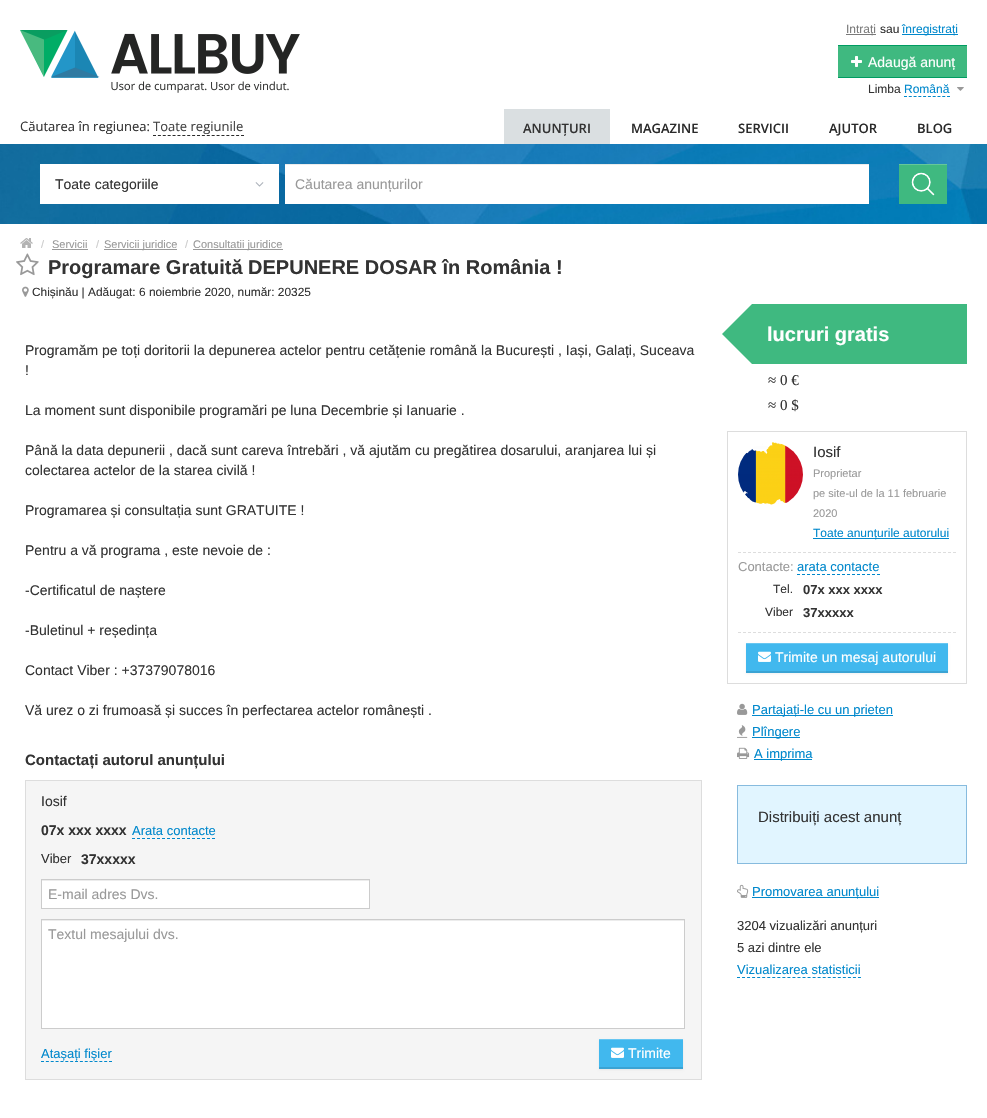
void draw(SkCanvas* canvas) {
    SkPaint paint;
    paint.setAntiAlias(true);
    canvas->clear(0xFFFFFFFF);
    canvas->drawImageRect(SkImages::DeferredFromEncodedData(SkData::MakeFromFileName("img1.png")), SkRect::MakeXYWH(20, 30, 280, 63), SkSamplingOptions());
    paint.setColor(0xFF7A7A7A);
    canvas->drawRect(SkRect::MakeXYWH(846, 34, 30, 1), paint);
    SkFont font1(fontMgr->matchFamilyStyle("Liberation Sans", SkFontStyle::Normal()), 12);
    font1.setSubpixel(true);
    canvas->drawString("Intrați", 846, 33, font1, paint);
    paint.setColor(0xFF333333);
    canvas->drawString("sau", 880, 33, font1, paint);
    paint.setColor(0xFF0088CC);
    canvas->drawRect(SkRect::MakeXYWH(902, 34, 56, 1), paint);
    canvas->drawString("înregistrați", 902, 33, font1, paint);
    paint.setColor(0xFF3FB980);
    canvas->drawRect(SkRect::MakeXYWH(838, 46, 129, 31), paint);
    paint.setColor(0xFF009C62);
    canvas->drawRect(SkRect::MakeXYWH(838, 45, 129, 1), paint);
    canvas->drawRect(SkRect::MakeXYWH(838, 77, 129, 1), paint);
    canvas->drawImageRect(SkImages::DeferredFromEncodedData(SkData::MakeFromFileName("img2.png")), SkRect::MakeXYWH(851, 56, 11, 11), SkSamplingOptions());
    SkFont font2(fontMgr->matchFamilyStyle("Liberation Sans", SkFontStyle::Normal()), 14);
    font2.setSubpixel(true);
    paint.setColor(0xFFFFFFFF);
    canvas->drawString("Adaugă anunț", 868, 67, font2, paint);
    paint.setColor(0xFF333333);
    canvas->drawString("Limba", 868, 93, font1, paint);
    paint.setColor(0xFF0088CC);
    canvas->drawString("Română", 904, 93, font1, paint);
    paint.setStyle(SkPaint::kStroke_Style);
    paint.setStrokeWidth(1);
    paint.setPathEffect(SkDashPathEffect::Make({{3, 1.78f}}, 0));
    canvas->drawPath(SkPathBuilder().moveTo(904, 96.5f).lineTo(950, 96.5f).detach(), paint);
    paint.setPathEffect(nullptr);
    canvas->drawImageRect(SkImages::DeferredFromEncodedData(SkData::MakeFromFileName("img3.png")), SkRect::MakeXYWH(957, 87, 7, 4), SkSamplingOptions());
    SkFont font3(fontMgr->matchFamilyStyle("Open Sans", SkFontStyle::Normal()), 13);
    font3.setSubpixel(true);
    paint.setStyle(SkPaint::kFill_Style);
    paint.setColor(0xFF333333);
    canvas->drawString("Căutarea în regiunea:", 20, 131, font3, paint);
    paint.setColor(0xFF434343);
    canvas->drawString("Toate regiunile", 153, 131, font3, paint);
    paint.setStyle(SkPaint::kStroke_Style);
    paint.setColor(0xFF2A2A2A);
    paint.setPathEffect(SkDashPathEffect::Make({{3, 1.89f}}, 0));
    canvas->drawPath(SkPathBuilder().moveTo(153, 135.5f).lineTo(244, 135.5f).detach(), paint);
    paint.setPathEffect(nullptr);
    paint.setStyle(SkPaint::kFill_Style);
    paint.setColor(0xFFDADFE1);
    canvas->drawRect(SkRect::MakeXYWH(504, 109, 106, 35), paint);
    SkFont font4(fontMgr->matchFamilyStyle("Open Sans", SkFontStyle(600, SkFontStyle::kNormal_Width, SkFontStyle::kUpright_Slant)), 13);
    font4.setSubpixel(true);
    paint.setColor(0xFF333333);
    canvas->drawString("ANUNȚURI", 523, 133, font4, paint);
    paint.setColor(0xFF2A2A2A);
    canvas->drawString("MAGAZINE", 631, 133, font4, paint);
    canvas->drawString("SERVICII", 738, 133, font4, paint);
    canvas->drawString("AJUTOR", 829, 133, font4, paint);
    canvas->drawString("BLOG", 917, 133, font4, paint);
    canvas->drawImageRect(SkImages::DeferredFromEncodedData(SkData::MakeFromFileName("img4.png")), SkRect::MakeXYWH(0, 144, 987, 80), SkSamplingOptions());
    paint.setColor(0xFFFFFFFF);
    canvas->drawRect(SkRect::MakeXYWH(40, 164, 239, 40), paint);
    paint.setColor(0xFF333333);
    canvas->drawString("Toate categoriile", 55, 189, font2, paint);
    canvas->drawImageRect(SkImages::DeferredFromEncodedData(SkData::MakeFromFileName("img5.png")), SkRect::MakeXYWH(255, 182, 9, 5), SkSamplingOptions());
    paint.setColor(0xFFFFFFFF);
    canvas->drawRect(SkRect::MakeXYWH(285, 165, 584, 39), paint);
    paint.setColor(0xFFECECEC);
    canvas->drawRect(SkRect::MakeXYWH(285, 164, 584, 1), paint);
    paint.setColor(0xFF999999);
    canvas->drawString("Căutarea anunțurilor", 295, 189, font2, paint);
    paint.setColor(0xFF3FB980);
    canvas->drawRect(SkRect::MakeXYWH(899, 165, 48, 39), paint);
    paint.setColor(0xFF65C799);
    canvas->drawRect(SkRect::MakeXYWH(899, 164, 48, 1), paint);
    canvas->drawImageRect(SkImages::DeferredFromEncodedData(SkData::MakeFromFileName("img6.png")), SkRect::MakeXYWH(911, 172, 24, 24), SkSamplingOptions());
    canvas->drawImageRect(SkImages::DeferredFromEncodedData(SkData::MakeFromFileName("img7.png")), SkRect::MakeXYWH(20, 238, 13, 10), SkSamplingOptions());
    SkFont font5(fontMgr->matchFamilyStyle("Liberation Sans", SkFontStyle::Normal()), 11);
    font5.setSubpixel(true);
    paint.setColor(0xFFCCCCCC);
    canvas->drawString("/", 41, 248, font5, paint);
    paint.setColor(0xFF999999);
    canvas->drawString("Servicii", 52, 248, font5, paint);
    canvas->drawRect(SkRect::MakeXYWH(52, 249, 36, 1), paint);
    paint.setColor(0xFFCCCCCC);
    canvas->drawString("/", 96, 248, font5, paint);
    paint.setColor(0xFF999999);
    canvas->drawRect(SkRect::MakeXYWH(104, 249, 73, 1), paint);
    canvas->drawString("Servicii juridice", 104, 248, font5, paint);
    paint.setColor(0xFFCCCCCC);
    canvas->drawString("/", 185, 248, font5, paint);
    paint.setColor(0xFF999999);
    canvas->drawRect(SkRect::MakeXYWH(193, 249, 90, 1), paint);
    canvas->drawString("Consultatii juridice", 193, 248, font5, paint);
    canvas->drawImageRect(SkImages::DeferredFromEncodedData(SkData::MakeFromFileName("img8.png")), SkRect::MakeXYWH(16, 253, 23, 23), SkSamplingOptions());
    SkFont font6(fontMgr->matchFamilyStyle("Liberation Sans", SkFontStyle::Bold()), 20);
    font6.setSubpixel(true);
    paint.setColor(0xFF333333);
    canvas->drawString("Programare Gratuită DEPUNERE DOSAR în România !", 48, 274, font6, paint);
    canvas->drawImageRect(SkImages::DeferredFromEncodedData(SkData::MakeFromFileName("img9.png")), SkRect::MakeXYWH(22, 286, 7, 11), SkSamplingOptions());
    SkFont font7(fontMgr->matchFamilyStyle("Liberation Sans", SkFontStyle::Normal()), 11.9f);
    font7.setSubpixel(true);
    canvas->drawString("Chișinău | Adăugat: 6 noiembrie 2020, număr: 20325", 32, 296, font7, paint);
    canvas->drawString("Programăm pe toți doritorii la depunerea actelor pentru cetățenie română la București , Iași, Galați, Suceava", 25, 355, font2, paint);
    canvas->drawString("!", 25, 375, font2, paint);
    canvas->drawString("La moment sunt disponibile programări pe luna Decembrie și Ianuarie .", 25, 415, font2, paint);
    canvas->drawString("Până la data depunerii , dacă sunt careva întrebări , vă ajutăm cu pregătirea dosarului, aranjarea lui și", 25, 455, font2, paint);
    canvas->drawString("colectarea actelor de la starea civilă !", 25, 475, font2, paint);
    canvas->drawString("Programarea și consultația sunt GRATUITE !", 25, 515, font2, paint);
    canvas->drawString("Pentru a vă programa , este nevoie de :", 25, 555, font2, paint);
    canvas->drawString("-Certificatul de naștere", 25, 595, font2, paint);
    canvas->drawString("-Buletinul + reședința", 25, 635, font2, paint);
    canvas->drawString("Contact Viber : +37379078016", 25, 675, font2, paint);
    canvas->drawString("Vă urez o zi frumoasă și succes în perfectarea actelor românești .", 25, 715, font2, paint);
    SkFont font8(fontMgr->matchFamilyStyle("Liberation Sans", SkFontStyle::Bold()), 15);
    font8.setSubpixel(true);
    canvas->drawString("Contactați autorul anunțului", 25, 765, font8, paint);
    paint.setColor(0xFFF5F5F5);
    canvas->drawRect(SkRect::MakeXYWH(25.5f, 780.5f, 676, 299), paint);
    paint.setStyle(SkPaint::kStroke_Style);
    paint.setColor(0xFFDDDDDD);
    canvas->drawRect(SkRect::MakeXYWH(25.5f, 780.5f, 676, 299), paint);
    paint.setStyle(SkPaint::kFill_Style);
    paint.setColor(0xFF333333);
    canvas->drawString("Iosif", 41, 806, font2, paint);
    SkFont font9(fontMgr->matchFamilyStyle("Liberation Sans", SkFontStyle::Bold()), 14);
    font9.setSubpixel(true);
    canvas->drawString("07x xxx xxxx", 41, 835, font9, paint);
    SkFont font10(fontMgr->matchFamilyStyle("Liberation Sans", SkFontStyle::Normal()), 13);
    font10.setSubpixel(true);
    paint.setColor(0xFF0088CC);
    canvas->drawString("Arata contacte", 132, 835, font10, paint);
    paint.setStyle(SkPaint::kStroke_Style);
    paint.setPathEffect(SkDashPathEffect::Make({{3, 2}}, 0));
    canvas->drawPath(SkPathBuilder().moveTo(132, 838.5f).lineTo(215, 838.5f).detach(), paint);
    paint.setPathEffect(nullptr);
    paint.setStyle(SkPaint::kFill_Style);
    paint.setColor(0xFF333333);
    canvas->drawString("Viber", 41, 863, font10, paint);
    canvas->drawString("37xxxxx", 81, 864, font9, paint);
    paint.setColor(0xFFFFFFFF);
    canvas->drawRect(SkRect::MakeXYWH(42, 881, 327, 27), paint);
    paint.setColor(0xFFECECEC);
    canvas->drawRect(SkRect::MakeXYWH(42, 880, 327, 1), paint);
    paint.setStyle(SkPaint::kStroke_Style);
    paint.setColor(0xFFCCCCCC);
    canvas->drawRect(SkRect::MakeXYWH(41.5f, 879.5f, 328, 29), paint);
    paint.setStyle(SkPaint::kFill_Style);
    paint.setColor(0xFF999999);
    canvas->drawString("E-mail adres Dvs.", 48, 899, font2, paint);
    paint.setColor(0xFFFFFFFF);
    canvas->drawRect(SkRect::MakeXYWH(42, 921, 642, 107), paint);
    paint.setColor(0xFFECECEC);
    canvas->drawRect(SkRect::MakeXYWH(42, 920, 642, 1), paint);
    paint.setStyle(SkPaint::kStroke_Style);
    paint.setColor(0xFFCCCCCC);
    canvas->drawRect(SkRect::MakeXYWH(41.5f, 919.5f, 643, 109), paint);
    paint.setStyle(SkPaint::kFill_Style);
    paint.setColor(0xFF999999);
    canvas->drawString("Textul mesajului dvs.", 48, 939, font2, paint);
    paint.setColor(0xFF0088CC);
    canvas->drawString("Atașați fișier", 41, 1058, font10, paint);
    paint.setStyle(SkPaint::kStroke_Style);
    paint.setPathEffect(SkDashPathEffect::Make({{3, 1.86f}}, 0));
    canvas->drawPath(SkPathBuilder().moveTo(41, 1061.5f).lineTo(112, 1061.5f).detach(), paint);
    paint.setPathEffect(nullptr);
    paint.setStyle(SkPaint::kFill_Style);
    paint.setColor(0x0D000000);
    paint.setMaskFilter(SkMaskFilter::MakeBlur(kNormal_SkBlurStyle, 1));
    canvas->drawRect(SkRect::MakeXYWH(599, 1040, 84, 30), paint);
    paint.setMaskFilter(nullptr);
    paint.setColor(0xFF41B8EE);
    canvas->drawRect(SkRect::MakeXYWH(599, 1040, 84, 27), paint);
    paint.setColor(0xFF67C6F1);
    canvas->drawRect(SkRect::MakeXYWH(599, 1039, 84, 1), paint);
    paint.setColor(0xFF3BA3D3);
    canvas->drawRect(SkRect::MakeXYWH(599, 1067, 84, 2), paint);
    canvas->drawImageRect(SkImages::DeferredFromEncodedData(SkData::MakeFromFileName("img10.png")), SkRect::MakeXYWH(611, 1047, 13, 11), SkSamplingOptions());
    paint.setColor(0xFFFFFFFF);
    canvas->drawString("Trimite", 628, 1058, font2, paint);
    paint.setColor(0xFF3FB980);
    canvas->drawRect(SkRect::MakeXYWH(752, 304, 215, 60), paint);
    canvas->drawPath(SkPathBuilder().moveTo(752, 334).lineTo(722, 334).lineTo(752, 304).close().moveTo(722, 334).lineTo(752, 334).lineTo(752, 364).close().detach(), paint);
    paint.setColor(0xFFFFFFFF);
    canvas->drawString("lucruri gratis", 767, 341, font6, paint);
    SkFont font11(fontMgr->matchFamilyStyle("Liberation Serif", SkFontStyle::Normal()), 15);
    font11.setSubpixel(true);
    paint.setColor(0xFF333333);
    canvas->drawString("≈ 0 €", 768, 385, font11, paint);
    canvas->drawString("≈ 0 $", 768, 410, font11, paint);
    paint.setStyle(SkPaint::kStroke_Style);
    paint.setColor(0xFFDDDDDD);
    canvas->drawRect(SkRect::MakeXYWH(727.5f, 431.5f, 239, 252), paint);
    canvas->drawImageRect(SkImages::DeferredFromEncodedData(SkData::MakeFromFileName("img11.png")), SkRect::MakeXYWH(738, 442, 65, 63), SkSamplingOptions());
    SkFont font12(fontMgr->matchFamilyStyle("Liberation Sans", SkFontStyle::Normal()), 15);
    font12.setSubpixel(true);
    paint.setStyle(SkPaint::kFill_Style);
    paint.setColor(0xFF333333);
    canvas->drawString("Iosif", 813, 457, font12, paint);
    paint.setColor(0xFF999999);
    canvas->drawString("Proprietar", 813, 477, font5, paint);
    canvas->drawString("pe site-ul de la 11 februarie", 813, 497, font5, paint);
    canvas->drawString("2020", 813, 517, font5, paint);
    paint.setColor(0xFF0088CC);
    canvas->drawRect(SkRect::MakeXYWH(813, 538, 136, 1), paint);
    canvas->drawString("Toate anunțurile autorului", 813, 537, font1, paint);
    paint.setStyle(SkPaint::kStroke_Style);
    paint.setColor(0xFFDDDDDD);
    paint.setPathEffect(SkDashPathEffect::Make({{3, 2}}, 0));
    canvas->drawPath(SkPathBuilder().moveTo(738, 552.5f).lineTo(956, 552.5f).detach(), paint);
    paint.setPathEffect(nullptr);
    paint.setStyle(SkPaint::kFill_Style);
    paint.setColor(0xFF999999);
    canvas->drawString("Contacte:", 738, 571, font10, paint);
    paint.setColor(0xFF0088CC);
    canvas->drawString("arata contacte", 797, 571, font10, paint);
    paint.setStyle(SkPaint::kStroke_Style);
    paint.setPathEffect(SkDashPathEffect::Make({{3, 2}}, 0));
    canvas->drawPath(SkPathBuilder().moveTo(797, 574.5f).lineTo(880, 574.5f).detach(), paint);
    paint.setPathEffect(nullptr);
    paint.setStyle(SkPaint::kFill_Style);
    paint.setColor(0xFF333333);
    canvas->drawString("Tel.", 773, 593, font1, paint);
    SkFont font13(fontMgr->matchFamilyStyle("Liberation Sans", SkFontStyle::Bold()), 13);
    font13.setSubpixel(true);
    canvas->drawString("07x xxx xxxx", 803, 594, font13, paint);
    canvas->drawString("Viber", 765, 616, font1, paint);
    canvas->drawString("37xxxxx", 803, 617, font13, paint);
    paint.setStyle(SkPaint::kStroke_Style);
    paint.setColor(0xFFDDDDDD);
    paint.setPathEffect(SkDashPathEffect::Make({{3, 2}}, 0));
    canvas->drawPath(SkPathBuilder().moveTo(738, 632.5f).lineTo(956, 632.5f).detach(), paint);
    paint.setPathEffect(nullptr);
    paint.setStyle(SkPaint::kFill_Style);
    paint.setColor(0x0D000000);
    paint.setMaskFilter(SkMaskFilter::MakeBlur(kNormal_SkBlurStyle, 1));
    canvas->drawRect(SkRect::MakeXYWH(746, 644, 202, 30), paint);
    paint.setMaskFilter(nullptr);
    paint.setColor(0xFF41B8EE);
    canvas->drawRect(SkRect::MakeXYWH(746, 644, 202, 27), paint);
    paint.setColor(0xFF67C6F1);
    canvas->drawRect(SkRect::MakeXYWH(746, 643, 202, 1), paint);
    paint.setColor(0xFF3BA3D3);
    canvas->drawRect(SkRect::MakeXYWH(746, 671, 202, 2), paint);
    canvas->drawImageRect(SkImages::DeferredFromEncodedData(SkData::MakeFromFileName("img10.png")), SkRect::MakeXYWH(758, 651, 13, 11), SkSamplingOptions());
    paint.setColor(0xFFFFFFFF);
    canvas->drawString("Trimite un mesaj autorului", 775, 662, font2, paint);
    canvas->drawImageRect(SkImages::DeferredFromEncodedData(SkData::MakeFromFileName("img12.png")), SkRect::MakeXYWH(737, 703, 11, 12), SkSamplingOptions());
    paint.setColor(0xFF0088CC);
    canvas->drawRect(SkRect::MakeXYWH(752, 715, 141, 1), paint);
    canvas->drawString("Partajați-le cu un prieten", 752, 714, font10, paint);
    canvas->drawImageRect(SkImages::DeferredFromEncodedData(SkData::MakeFromFileName("img13.png")), SkRect::MakeXYWH(737, 725, 11, 13), SkSamplingOptions());
    canvas->drawRect(SkRect::MakeXYWH(752, 737, 48, 1), paint);
    canvas->drawString("Plîngere", 752, 736, font10, paint);
    canvas->drawImageRect(SkImages::DeferredFromEncodedData(SkData::MakeFromFileName("img14.png")), SkRect::MakeXYWH(737, 747, 13, 12), SkSamplingOptions());
    canvas->drawRect(SkRect::MakeXYWH(754, 759, 58, 1), paint);
    canvas->drawString("A imprima", 754, 758, font10, paint);
    paint.setColor(0xFFE1F5FF);
    canvas->drawRect(SkRect::MakeXYWH(737.5f, 785.5f, 229, 78), paint);
    paint.setStyle(SkPaint::kStroke_Style);
    paint.setColor(0xFF87BBDE);
    canvas->drawRect(SkRect::MakeXYWH(737.5f, 785.5f, 229, 78), paint);
    paint.setStyle(SkPaint::kFill_Style);
    paint.setColor(0xFF333333);
    canvas->drawString("Distribuiți acest anunț", 758, 822, font12, paint);
    canvas->drawImageRect(SkImages::DeferredFromEncodedData(SkData::MakeFromFileName("img15.png")), SkRect::MakeXYWH(737, 884, 12, 14), SkSamplingOptions());
    paint.setColor(0xFF0088CC);
    canvas->drawRect(SkRect::MakeXYWH(752, 897, 127, 1), paint);
    canvas->drawString("Promovarea anunțului", 752, 896, font10, paint);
    paint.setColor(0xFF333333);
    canvas->drawString("3204 vizualizări anunțuri", 737, 930, font10, paint);
    canvas->drawString("5 azi dintre ele", 737, 952, font10, paint);
    paint.setColor(0xFF0088CC);
    canvas->drawString("Vizualizarea statisticii", 737, 974, font10, paint);
    paint.setStyle(SkPaint::kStroke_Style);
    paint.setPathEffect(SkDashPathEffect::Make({{3, 2.04f}}, 0));
    canvas->drawPath(SkPathBuilder().moveTo(737, 977.5f).lineTo(861, 977.5f).detach(), paint);
    paint.setPathEffect(nullptr);
}
